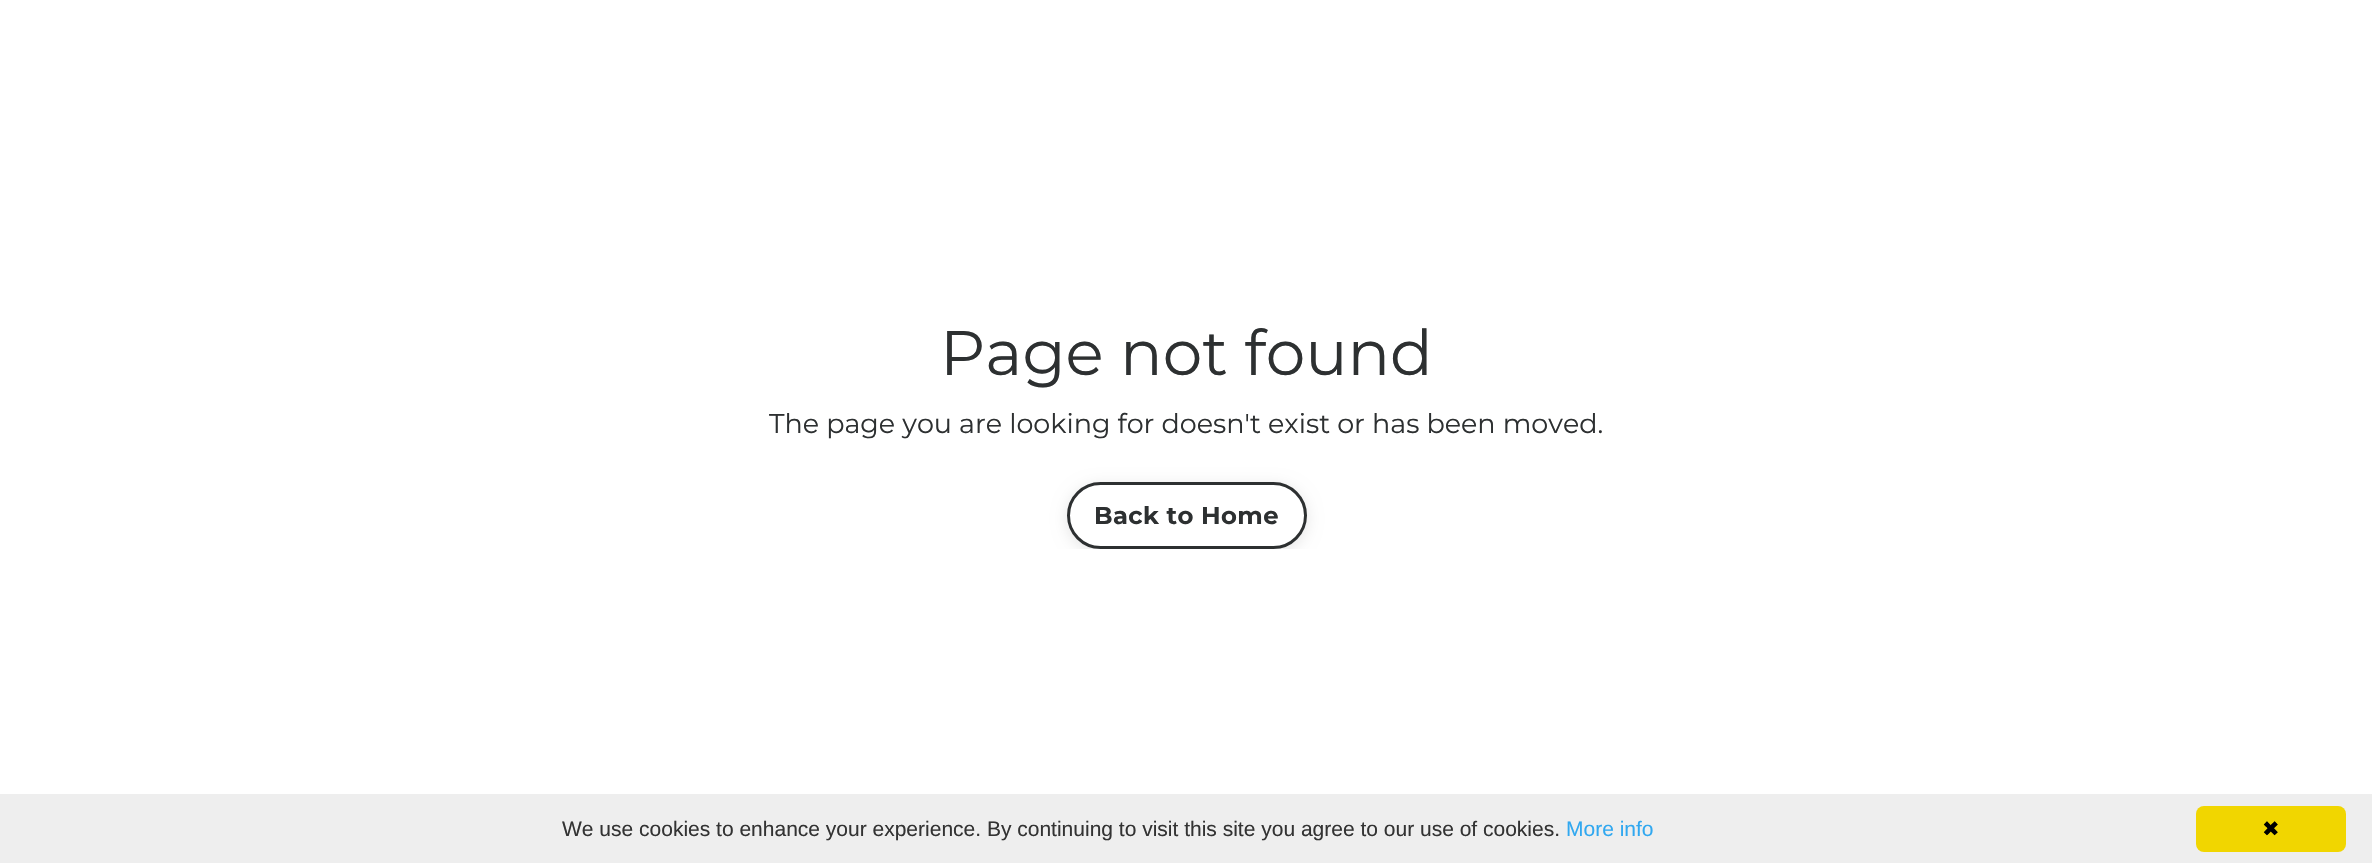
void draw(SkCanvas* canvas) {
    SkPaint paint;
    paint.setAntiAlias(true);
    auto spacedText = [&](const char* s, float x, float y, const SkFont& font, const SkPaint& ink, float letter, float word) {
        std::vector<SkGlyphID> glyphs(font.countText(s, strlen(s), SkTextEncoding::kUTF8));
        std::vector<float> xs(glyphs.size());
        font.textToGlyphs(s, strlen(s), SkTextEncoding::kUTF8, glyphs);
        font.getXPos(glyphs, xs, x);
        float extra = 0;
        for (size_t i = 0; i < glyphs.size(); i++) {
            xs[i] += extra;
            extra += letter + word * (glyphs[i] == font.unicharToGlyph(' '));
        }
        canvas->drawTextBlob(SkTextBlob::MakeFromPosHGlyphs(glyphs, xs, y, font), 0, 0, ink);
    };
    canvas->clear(0xFFFFFFFF);
    SkFont font1(fontMgr->matchFamilyStyle("Montserrat", SkFontStyle::Normal()), 63);
    font1.setSubpixel(true);
    paint.setColor(0xFF2D3031);
    canvas->drawString("Page not found", 940, 375, font1, paint);
    SkFont font2(fontMgr->matchFamilyStyle("Montserrat", SkFontStyle::Normal()), 27);
    font2.setSubpixel(true);
    canvas->drawString("The page you are looking for doesn't exist or has been moved.", 769, 433, font2, paint);
    canvas->save();
    canvas->clipPath(SkPathBuilder().moveTo(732, 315).lineTo(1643, 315).cubicTo(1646.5f, 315, 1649, 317.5f, 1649, 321).lineTo(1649, 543).cubicTo(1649, 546.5f, 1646.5f, 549, 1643, 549).lineTo(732, 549).cubicTo(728.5f, 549, 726, 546.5f, 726, 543).lineTo(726, 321).cubicTo(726, 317.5f, 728.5f, 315, 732, 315).close().detach(), true);
    canvas->clipPath(SkPathBuilder(SkPathFillType::kEvenOdd).moveTo(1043, 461).lineTo(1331, 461).lineTo(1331, 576).lineTo(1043, 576).close().moveTo(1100.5f, 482).lineTo(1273.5f, 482).cubicTo(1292, 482, 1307, 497, 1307, 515.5f).cubicTo(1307, 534, 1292, 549, 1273.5f, 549).lineTo(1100.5f, 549).cubicTo(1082, 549, 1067, 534, 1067, 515.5f).cubicTo(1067, 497, 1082, 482, 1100.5f, 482).close().detach(), true);
    paint.setColor(0x1A000000);
    paint.setMaskFilter(SkMaskFilter::MakeBlur(kNormal_SkBlurStyle, 7.5f));
    canvas->drawRoundRect(SkRect::MakeXYWH(1067, 485, 240, 67), 33.5f, 33.5f, paint);
    paint.setMaskFilter(nullptr);
    canvas->restore();
    paint.setStyle(SkPaint::kStroke_Style);
    paint.setStrokeWidth(3);
    paint.setColor(0xFF2D3031);
    canvas->drawRoundRect(SkRect::MakeXYWH(1068.5f, 483.5f, 237, 64), 32, 32, paint);
    SkFont font3(fontMgr->matchFamilyStyle("Montserrat", SkFontStyle::Bold()), 24.25f);
    font3.setSubpixel(true);
    paint.setStyle(SkPaint::kFill_Style);
    spacedText("Back to Home", 1094, 524, font3, paint, 0.4f, 0);
    paint.setColor(0xFFEEEEEE);
    canvas->drawRect(SkRect::MakeXYWH(0, 794, 2372, 69), paint);
    SkFont font4(fontMgr->matchFamilyStyle("Liberation Sans", SkFontStyle::Normal()), 21);
    font4.setSubpixel(true);
    paint.setColor(0xFF333333);
    canvas->drawString("We use cookies to enhance your experience. By continuing to visit this site you agree to our use of cookies.", 562, 836, font4, paint);
    paint.setColor(0xFF31A8F0);
    canvas->drawString("More info", 1566, 836, font4, paint);
    paint.setColor(0xFFF1D600);
    canvas->drawRoundRect(SkRect::MakeXYWH(2196, 806, 150, 46), 8, 8, paint);
    SkFont font5(fontMgr->matchFamilyStyle("DejaVu Sans", SkFontStyle::Normal()), 21);
    font5.setSubpixel(true);
    paint.setColor(0xFF000000);
    canvas->drawString("✖", 2262, 836, font5, paint);
}
